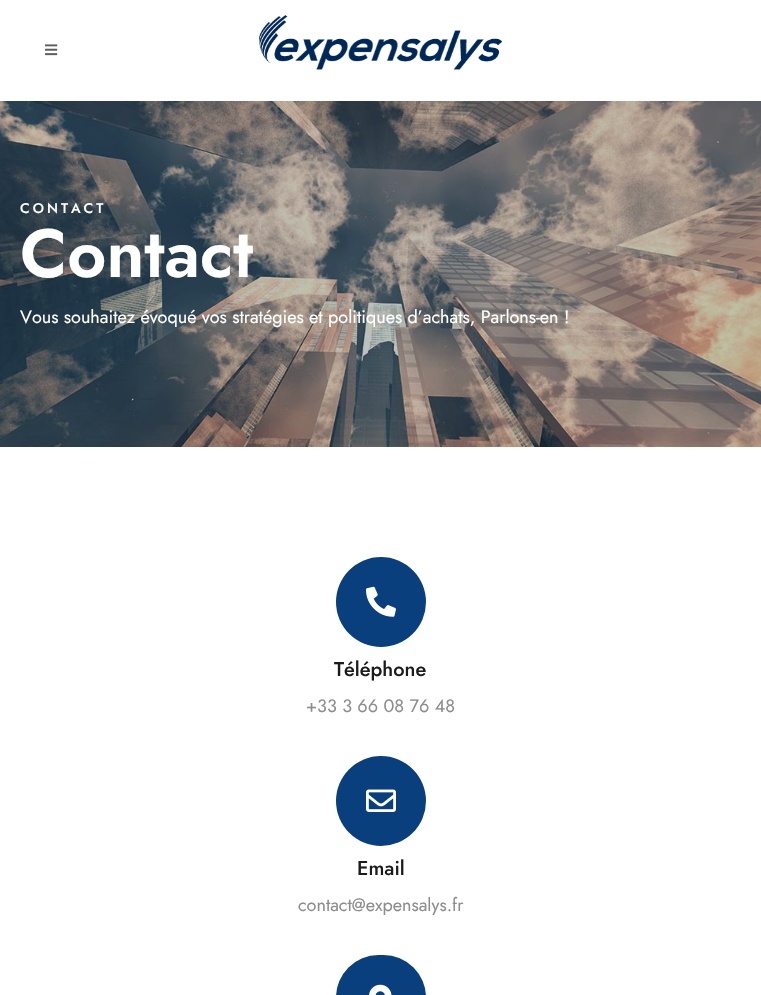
void draw(SkCanvas* canvas) {
    SkPaint paint;
    paint.setAntiAlias(true);
    auto spacedText = [&](const char* s, float x, float y, const SkFont& font, const SkPaint& ink, float letter, float word) {
        std::vector<SkGlyphID> glyphs(font.countText(s, strlen(s), SkTextEncoding::kUTF8));
        std::vector<float> xs(glyphs.size());
        font.textToGlyphs(s, strlen(s), SkTextEncoding::kUTF8, glyphs);
        font.getXPos(glyphs, xs, x);
        float extra = 0;
        for (size_t i = 0; i < glyphs.size(); i++) {
            xs[i] += extra;
            extra += letter + word * (glyphs[i] == font.unicharToGlyph(' '));
        }
        canvas->drawTextBlob(SkTextBlob::MakeFromPosHGlyphs(glyphs, xs, y, font), 0, 0, ink);
    };
    canvas->clear(0xFFFFFFFF);
    canvas->drawImageRect(SkImages::DeferredFromEncodedData(SkData::MakeFromFileName("img1.png")), SkRect::MakeXYWH(45, 44, 13, 12), SkSamplingOptions());
    canvas->drawImageRect(SkImages::DeferredFromEncodedData(SkData::MakeFromFileName("img2.png")), SkRect::MakeXYWH(259, 15, 243, 55), SkSamplingOptions());
    canvas->drawImageRect(SkImages::DeferredFromEncodedData(SkData::MakeFromFileName("img3.png")), SkRect::MakeXYWH(0, 101, 761, 346), SkSamplingOptions());
    SkFont font1(fontMgr->matchFamilyStyle("Jost", SkFontStyle(500, SkFontStyle::kNormal_Width, SkFontStyle::kUpright_Slant)), 14);
    font1.setSubpixel(true);
    paint.setColor(0xFFFFFFFF);
    spacedText("CONTACT", 20, 213, font1, paint, 3, 0);
    SkFont font2(fontMgr->matchFamilyStyle("Jost", SkFontStyle(600, SkFontStyle::kNormal_Width, SkFontStyle::kUpright_Slant)), 68);
    font2.setSubpixel(true);
    canvas->drawString("Contact", 20, 277, font2, paint);
    SkFont font3(fontMgr->matchFamilyStyle("Jost", SkFontStyle::Normal()), 18);
    font3.setSubpixel(true);
    canvas->drawString("Vous souhaitez évoqué vos stratégies et politiques d’achats, Parlons-en !", 20, 323, font3, paint);
    paint.setColor(0xFF093F7D);
    canvas->drawCircle(381, 602, 45, paint);
    canvas->drawImageRect(SkImages::DeferredFromEncodedData(SkData::MakeFromFileName("img4.png")), SkRect::MakeXYWH(366, 586, 30, 31), SkSamplingOptions());
    SkFont font4(fontMgr->matchFamilyStyle("Jost", SkFontStyle(500, SkFontStyle::kNormal_Width, SkFontStyle::kUpright_Slant)), 20);
    font4.setSubpixel(true);
    paint.setColor(0xFF1B1B1B);
    canvas->drawString("Téléphone", 334, 676, font4, paint);
    paint.setColor(0xFF8D8D8D);
    canvas->drawString("+33 3 66 08 76 48", 306, 712, font3, paint);
    paint.setColor(0xFF093F7D);
    canvas->drawCircle(381, 801, 45, paint);
    canvas->drawImageRect(SkImages::DeferredFromEncodedData(SkData::MakeFromFileName("img5.png")), SkRect::MakeXYWH(366, 789, 30, 23), SkSamplingOptions());
    paint.setColor(0xFF1B1B1B);
    canvas->drawString("Email", 357, 875, font4, paint);
    paint.setColor(0xFF8D8D8D);
    canvas->drawString("contact@expensalys.fr", 298, 911, font3, paint);
    paint.setColor(0xFF093F7D);
    canvas->drawRoundRect(SkRect::MakeXYWH(336, 955, 90, 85), 45, 45, paint);
    canvas->drawImageRect(SkImages::DeferredFromEncodedData(SkData::MakeFromFileName("img6.png")), SkRect::MakeXYWH(369, 984, 23, 11), SkSamplingOptions());
}
